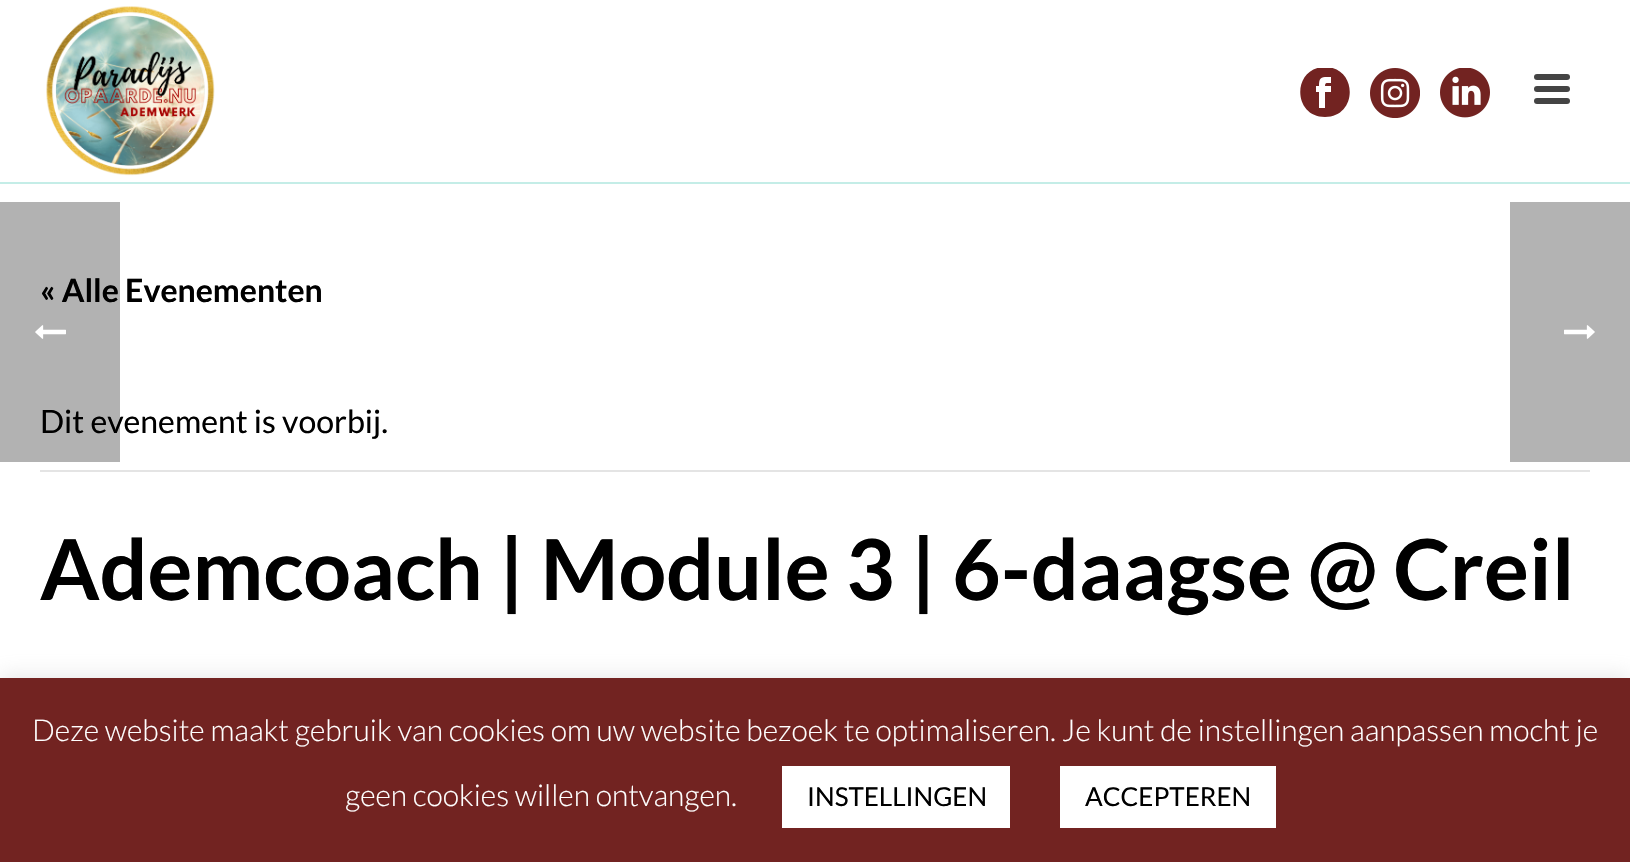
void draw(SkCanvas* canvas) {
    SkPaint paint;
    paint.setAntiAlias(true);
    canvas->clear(0xFFFFFFFF);
    SkFont font1(fontMgr->matchFamilyStyle("Lato", SkFontStyle::Bold()), 32);
    font1.setSubpixel(true);
    paint.setColor(0xFF000000);
    canvas->drawString("« Alle Evenementen", 40, 302, font1, paint);
    SkFont font2(fontMgr->matchFamilyStyle("Lato", SkFontStyle::Normal()), 32);
    font2.setSubpixel(true);
    canvas->drawString("Dit evenement is voorbij.", 40, 433, font2, paint);
    paint.setColor(0x4D000000);
    canvas->drawRect(SkRect::MakeXYWH(0, 202, 120, 260), paint);
    canvas->drawImageRect(SkImages::DeferredFromEncodedData(SkData::MakeFromFileName("img1.png")), SkRect::MakeXYWH(35, 325, 31, 14), SkSamplingOptions());
    paint.setColor(0xFFB3B3B3);
    canvas->drawRect(SkRect::MakeXYWH(1510, 202, 120, 260), paint);
    canvas->drawImageRect(SkImages::DeferredFromEncodedData(SkData::MakeFromFileName("img2.png")), SkRect::MakeXYWH(1564, 325, 31, 14), SkSamplingOptions());
    paint.setColor(0xFFC4EDE7);
    canvas->drawRect(SkRect::MakeXYWH(0, 182, 1630, 2), paint);
    canvas->drawImageRect(SkImages::DeferredFromEncodedData(SkData::MakeFromFileName("img3.png")), SkRect::MakeXYWH(46, 6, 169, 170), SkSamplingOptions());
    paint.setColor(0xFF444444);
    canvas->drawRoundRect(SkRect::MakeXYWH(1534, 74, 36, 6), 3, 3, paint);
    canvas->drawRoundRect(SkRect::MakeXYWH(1534, 86, 36, 6), 3, 3, paint);
    canvas->drawRoundRect(SkRect::MakeXYWH(1534, 98, 36, 6), 3, 3, paint);
    canvas->save();
    canvas->clipRect(SkRect::MakeXYWH(1300, 68, 50, 50));
    paint.setColor(0xFF722321);
    canvas->drawPath(SkPathBuilder().moveTo(1325, 67).cubicTo(1292, 67, 1292, 117, 1325, 117).cubicTo(1358, 117, 1358, 67, 1325, 67).close().moveTo(1331, 83).cubicTo(1327, 83, 1325, 82, 1325, 86).lineTo(1331, 86).lineTo(1331, 92).lineTo(1325, 92).lineTo(1325, 108).lineTo(1319, 108).lineTo(1319, 92).lineTo(1316, 92).lineTo(1316, 86).lineTo(1319, 86).cubicTo(1319, 76, 1322, 77, 1331, 77).close().detach(), paint);
    canvas->restore();
    canvas->drawImageRect(SkImages::DeferredFromEncodedData(SkData::MakeFromFileName("img4.png")), SkRect::MakeXYWH(1370, 68, 50, 50), SkSamplingOptions());
    canvas->drawImageRect(SkImages::DeferredFromEncodedData(SkData::MakeFromFileName("img5.png")), SkRect::MakeXYWH(1440, 68, 50, 50), SkSamplingOptions());
    paint.setColor(0xFFE4E4E4);
    canvas->drawRect(SkRect::MakeXYWH(40, 470, 1550, 2), paint);
    SkFont font3(fontMgr->matchFamilyStyle("Lato", SkFontStyle::Bold()), 84);
    font3.setSubpixel(true);
    paint.setColor(0xFF000000);
    canvas->drawString("Ademcoach | Module 3 | 6-daagse @ Creil", 40, 600, font3, paint);
    paint.setColor(0x4DACABAB);
    paint.setMaskFilter(SkMaskFilter::MakeBlur(kNormal_SkBlurStyle, 10));
    canvas->drawRect(SkRect::MakeXYWH(0, 676, 1630, 184), paint);
    paint.setMaskFilter(nullptr);
    paint.setColor(0xFF722321);
    canvas->drawRect(SkRect::MakeXYWH(0, 678, 1630, 184), paint);
    SkFont font4(fontMgr->matchFamilyStyle("Lato", SkFontStyle(300, SkFontStyle::kNormal_Width, SkFontStyle::kUpright_Slant)), 30);
    font4.setSubpixel(true);
    paint.setColor(0xFFFFFFFF);
    canvas->drawString("Deze website maakt gebruik van cookies om uw website bezoek te optimaliseren. Je kunt de instellingen aanpassen mocht je", 32, 741, font4, paint);
    canvas->drawString("geen cookies willen ontvangen.", 345, 806, font4, paint);
    canvas->drawRect(SkRect::MakeXYWH(782, 766, 228, 62), paint);
    SkFont font5(fontMgr->matchFamilyStyle("Lato", SkFontStyle::Normal()), 26);
    font5.setSubpixel(true);
    paint.setColor(0xFF000000);
    canvas->drawString("INSTELLINGEN", 807, 806, font5, paint);
    paint.setColor(0xFFFFFFFF);
    canvas->drawRect(SkRect::MakeXYWH(1060, 766, 216, 62), paint);
    paint.setColor(0xFF000000);
    canvas->drawString("ACCEPTEREN", 1085, 806, font5, paint);
}
